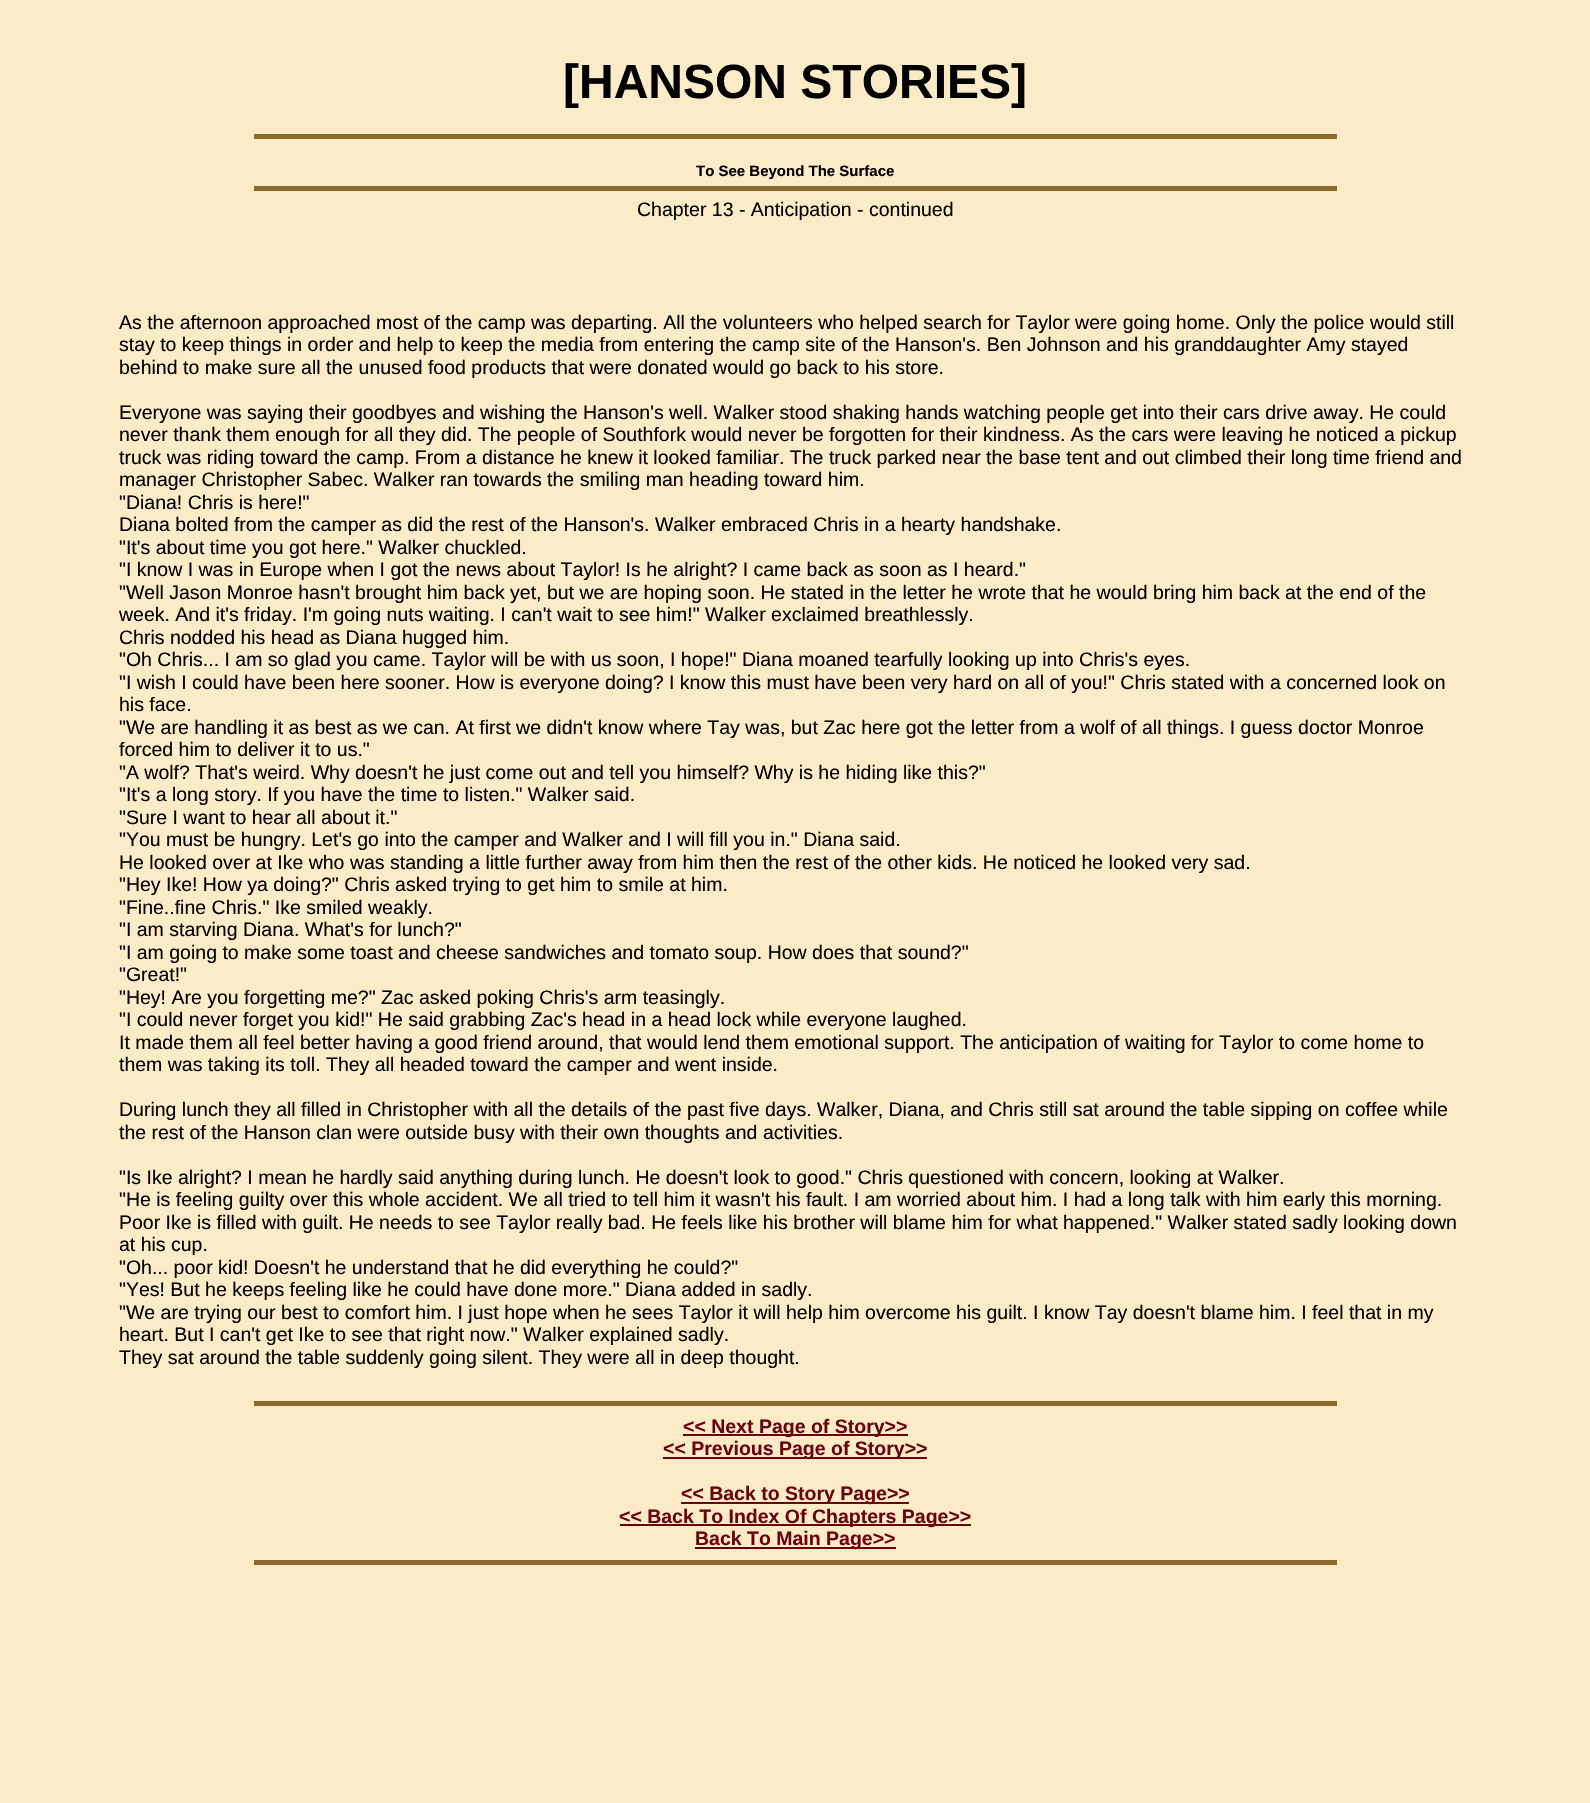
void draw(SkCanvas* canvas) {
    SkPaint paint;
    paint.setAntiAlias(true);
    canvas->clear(0xFFFBEBC6);
    SkFont font1(fontMgr->matchFamilyStyle("Liberation Sans", SkFontStyle::Bold()), 48);
    font1.setSubpixel(true);
    paint.setColor(0xFF000000);
    canvas->drawString("[HANSON STORIES]", 563, 98, font1, paint);
    paint.setColor(0xFF8C6B2C);
    canvas->drawRect(SkRect::MakeXYWH(254, 134, 1083, 5), paint);
    SkFont font2(fontMgr->matchFamilyStyle("Liberation Sans", SkFontStyle::Bold()), 15);
    font2.setSubpixel(true);
    paint.setColor(0xFF000000);
    canvas->drawString("To See Beyond The Surface", 696, 176, font2, paint);
    paint.setColor(0xFF8C6B2C);
    canvas->drawRect(SkRect::MakeXYWH(254, 186, 1083, 5), paint);
    SkFont font3(fontMgr->matchFamilyStyle("Liberation Sans", SkFontStyle::Normal()), 19.5f);
    font3.setSubpixel(true);
    paint.setColor(0xFF000000);
    canvas->drawString("Chapter 13 - Anticipation - continued", 637, 216, font3, paint);
    canvas->drawString("As the afternoon approached most of the camp was departing. All the volunteers who helped search for Taylor were going home. Only the police would still", 119, 329, font3, paint);
    canvas->drawString("stay to keep things in order and help to keep the media from entering the camp site of the Hanson's. Ben Johnson and his granddaughter Amy stayed", 119, 351, font3, paint);
    canvas->drawString("behind to make sure all the unused food products that were donated would go back to his store.", 119, 374, font3, paint);
    canvas->drawString("Everyone was saying their goodbyes and wishing the Hanson's well. Walker stood shaking hands watching people get into their cars drive away. He could", 119, 419, font3, paint);
    canvas->drawString("never thank them enough for all they did. The people of Southfork would never be forgotten for their kindness. As the cars were leaving he noticed a pickup", 119, 441, font3, paint);
    canvas->drawString("truck was riding toward the camp. From a distance he knew it looked familiar. The truck parked near the base tent and out climbed their long time friend and", 119, 464, font3, paint);
    canvas->drawString("manager Christopher Sabec. Walker ran towards the smiling man heading toward him.", 119, 486, font3, paint);
    canvas->drawString("\"Diana! Chris is here!\"", 119, 509, font3, paint);
    canvas->drawString("Diana bolted from the camper as did the rest of the Hanson's. Walker embraced Chris in a hearty handshake.", 119, 531, font3, paint);
    canvas->drawString("\"It's about time you got here.\" Walker chuckled.", 119, 554, font3, paint);
    canvas->drawString("\"I know I was in Europe when I got the news about Taylor! Is he alright? I came back as soon as I heard.\"", 119, 576, font3, paint);
    canvas->drawString("\"Well Jason Monroe hasn't brought him back yet, but we are hoping soon. He stated in the letter he wrote that he would bring him back at the end of the", 119, 599, font3, paint);
    canvas->drawString("week. And it's friday. I'm going nuts waiting. I can't wait to see him!\" Walker exclaimed breathlessly.", 119, 621, font3, paint);
    canvas->drawString("Chris nodded his head as Diana hugged him.", 119, 644, font3, paint);
    canvas->drawString("\"Oh Chris... I am so glad you came. Taylor will be with us soon, I hope!\" Diana moaned tearfully looking up into Chris's eyes.", 119, 666, font3, paint);
    canvas->drawString("\"I wish I could have been here sooner. How is everyone doing? I know this must have been very hard on all of you!\" Chris stated with a concerned look on", 119, 689, font3, paint);
    canvas->drawString("his face.", 119, 711, font3, paint);
    canvas->drawString("\"We are handling it as best as we can. At first we didn't know where Tay was, but Zac here got the letter from a wolf of all things. I guess doctor Monroe", 119, 734, font3, paint);
    canvas->drawString("forced him to deliver it to us.\"", 119, 756, font3, paint);
    canvas->drawString("\"A wolf? That's weird. Why doesn't he just come out and tell you himself? Why is he hiding like this?\"", 119, 779, font3, paint);
    canvas->drawString("\"It's a long story. If you have the time to listen.\" Walker said.", 119, 801, font3, paint);
    canvas->drawString("\"Sure I want to hear all about it.\"", 119, 824, font3, paint);
    canvas->drawString("\"You must be hungry. Let's go into the camper and Walker and I will fill you in.\" Diana said.", 119, 846, font3, paint);
    canvas->drawString("He looked over at Ike who was standing a little further away from him then the rest of the other kids. He noticed he looked very sad.", 119, 869, font3, paint);
    canvas->drawString("\"Hey Ike! How ya doing?\" Chris asked trying to get him to smile at him.", 119, 891, font3, paint);
    canvas->drawString("\"Fine..fine Chris.\" Ike smiled weakly.", 119, 914, font3, paint);
    canvas->drawString("\"I am starving Diana. What's for lunch?\"", 119, 936, font3, paint);
    canvas->drawString("\"I am going to make some toast and cheese sandwiches and tomato soup. How does that sound?\"", 119, 959, font3, paint);
    canvas->drawString("\"Great!\"", 119, 981, font3, paint);
    canvas->drawString("\"Hey! Are you forgetting me?\" Zac asked poking Chris's arm teasingly.", 119, 1004, font3, paint);
    canvas->drawString("\"I could never forget you kid!\" He said grabbing Zac's head in a head lock while everyone laughed.", 119, 1026, font3, paint);
    canvas->drawString("It made them all feel better having a good friend around, that would lend them emotional support. The anticipation of waiting for Taylor to come home to", 119, 1049, font3, paint);
    canvas->drawString("them was taking its toll. They all headed toward the camper and went inside.", 119, 1071, font3, paint);
    canvas->drawString("During lunch they all filled in Christopher with all the details of the past five days. Walker, Diana, and Chris still sat around the table sipping on coffee while", 119, 1116, font3, paint);
    canvas->drawString("the rest of the Hanson clan were outside busy with their own thoughts and activities.", 119, 1139, font3, paint);
    canvas->drawString("\"Is Ike alright? I mean he hardly said anything during lunch. He doesn't look to good.\" Chris questioned with concern, looking at Walker.", 119, 1184, font3, paint);
    canvas->drawString("\"He is feeling guilty over this whole accident. We all tried to tell him it wasn't his fault. I am worried about him. I had a long talk with him early this morning.", 119, 1206, font3, paint);
    canvas->drawString("Poor Ike is filled with guilt. He needs to see Taylor really bad. He feels like his brother will blame him for what happened.\" Walker stated sadly looking down", 119, 1229, font3, paint);
    canvas->drawString("at his cup.", 119, 1251, font3, paint);
    canvas->drawString("\"Oh... poor kid! Doesn't he understand that he did everything he could?\"", 119, 1274, font3, paint);
    canvas->drawString("\"Yes! But he keeps feeling like he could have done more.\" Diana added in sadly.", 119, 1296, font3, paint);
    canvas->drawString("\"We are trying our best to comfort him. I just hope when he sees Taylor it will help him overcome his guilt. I know Tay doesn't blame him. I feel that in my", 119, 1319, font3, paint);
    canvas->drawString("heart. But I can't get Ike to see that right now.\" Walker explained sadly.", 119, 1341, font3, paint);
    canvas->drawString("They sat around the table suddenly going silent. They were all in deep thought.", 119, 1364, font3, paint);
    paint.setColor(0xFF8C6B2C);
    canvas->drawRect(SkRect::MakeXYWH(254, 1401, 1083, 5), paint);
    paint.setColor(0xFF6C000E);
    canvas->drawRect(SkRect::MakeXYWH(683, 1434, 225, 2), paint);
    SkFont font4(fontMgr->matchFamilyStyle("Liberation Sans", SkFontStyle::Bold()), 19.5f);
    font4.setSubpixel(true);
    canvas->drawString("<< Next Page of Story>>", 683, 1433, font4, paint);
    canvas->drawRect(SkRect::MakeXYWH(663, 1457, 264, 2), paint);
    canvas->drawString("<< Previous Page of Story>>", 663, 1455, font4, paint);
    canvas->drawRect(SkRect::MakeXYWH(681, 1502, 228, 2), paint);
    canvas->drawString("<< Back to Story Page>>", 681, 1500, font4, paint);
    canvas->drawRect(SkRect::MakeXYWH(620, 1524, 351, 2), paint);
    canvas->drawString("<< Back To Index Of Chapters Page>>", 619, 1523, font4, paint);
    canvas->drawRect(SkRect::MakeXYWH(695, 1547, 201, 2), paint);
    canvas->drawString("Back To Main Page>>", 695, 1545, font4, paint);
    paint.setColor(0xFF8C6B2C);
    canvas->drawRect(SkRect::MakeXYWH(254, 1560, 1083, 5), paint);
}
